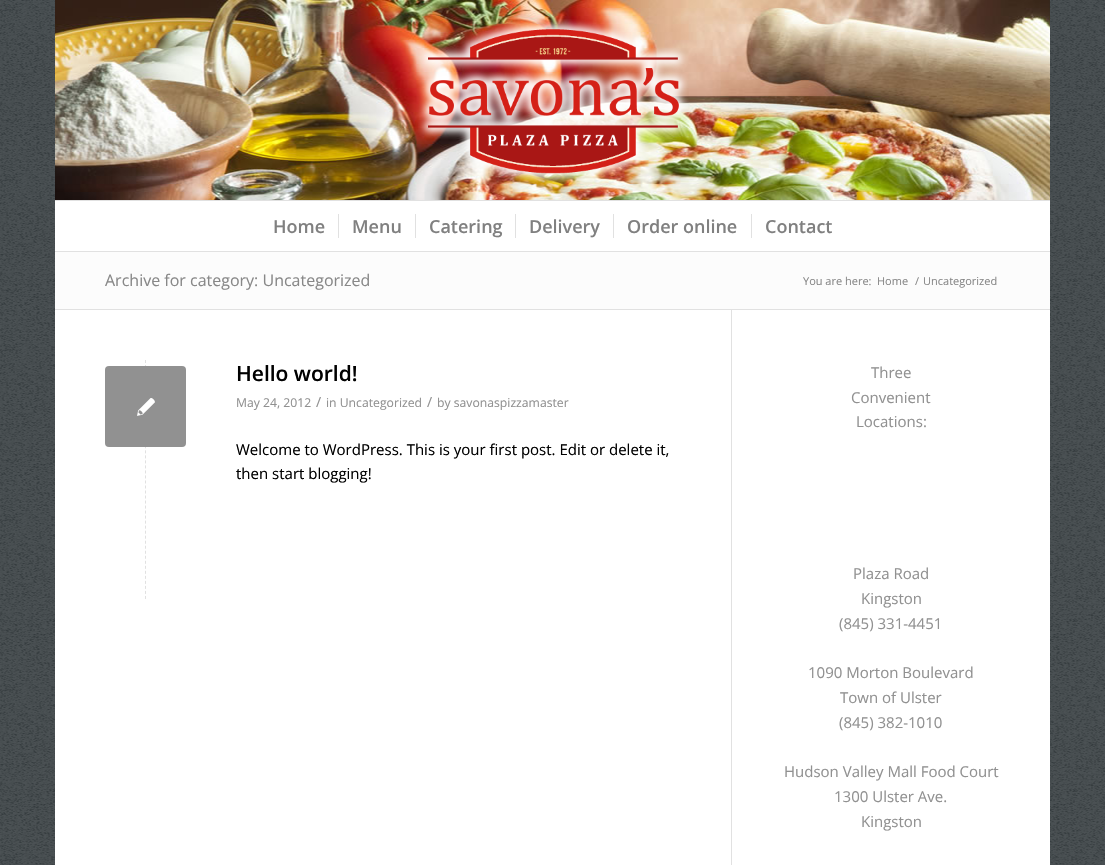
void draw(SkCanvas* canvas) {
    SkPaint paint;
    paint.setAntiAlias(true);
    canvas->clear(0xFF363D40);
    canvas->drawImageRect(SkImages::DeferredFromEncodedData(SkData::MakeFromFileName("img1.png")), SkRect::MakeXYWH(0, 0, 1105, 865), SkSamplingOptions());
    canvas->drawImageRect(SkImages::DeferredFromEncodedData(SkData::MakeFromFileName("img2.png")), SkRect::MakeXYWH(55, 0, 995, 200), SkSamplingOptions());
    paint.setColor(0xFFE1E1E1);
    canvas->drawRect(SkRect::MakeXYWH(55, 251, 995, 1), paint);
    canvas->drawImageRect(SkImages::DeferredFromEncodedData(SkData::MakeFromFileName("img3.png")), SkRect::MakeXYWH(418, 19, 271, 165), SkSamplingOptions());
    canvas->drawRect(SkRect::MakeXYWH(55, 200, 995, 1), paint);
    paint.setColor(0xFFFFFFFF);
    canvas->drawRect(SkRect::MakeXYWH(55, 201, 995, 50), paint);
    SkFont font1(fontMgr->matchFamilyStyle("Open Sans", SkFontStyle(600, SkFontStyle::kNormal_Width, SkFontStyle::kUpright_Slant)), 18);
    font1.setSubpixel(true);
    paint.setColor(0xFF808080);
    canvas->drawString("Home", 273, 233, font1, paint);
    canvas->drawString("Menu", 352, 233, font1, paint);
    paint.setColor(0xFFE1E1E1);
    canvas->drawRect(SkRect::MakeXYWH(338, 214, 1, 24), paint);
    paint.setColor(0xFF808080);
    canvas->drawString("Catering", 429, 233, font1, paint);
    paint.setColor(0xFFE1E1E1);
    canvas->drawRect(SkRect::MakeXYWH(415, 214, 1, 24), paint);
    paint.setColor(0xFF808080);
    canvas->drawString("Delivery", 529, 233, font1, paint);
    paint.setColor(0xFFE1E1E1);
    canvas->drawRect(SkRect::MakeXYWH(515, 214, 1, 24), paint);
    paint.setColor(0xFF808080);
    canvas->drawString("Order online", 627, 233, font1, paint);
    paint.setColor(0xFFE1E1E1);
    canvas->drawRect(SkRect::MakeXYWH(613, 214, 1, 24), paint);
    paint.setColor(0xFF808080);
    canvas->drawString("Contact", 765, 233, font1, paint);
    paint.setColor(0xFFE1E1E1);
    canvas->drawRect(SkRect::MakeXYWH(751, 214, 1, 24), paint);
    paint.setColor(0xFFFCFCFC);
    canvas->drawRect(SkRect::MakeXYWH(55, 252, 995, 57), paint);
    SkFont font2(fontMgr->matchFamilyStyle("Open Sans", SkFontStyle::Normal()), 16);
    font2.setSubpixel(true);
    paint.setColor(0xFF888888);
    canvas->drawString("Archive for category: Uncategorized", 105, 286, font2, paint);
    SkFont font3(fontMgr->matchFamilyStyle("Open Sans", SkFontStyle::Normal()), 11);
    font3.setSubpixel(true);
    canvas->drawString("You are here:", 803, 285, font3, paint);
    canvas->drawString("Home", 877, 285, font3, paint);
    canvas->drawString("/", 915, 285, font3, paint);
    canvas->drawString("Uncategorized", 923, 285, font3, paint);
    paint.setColor(0xFFFFFFFF);
    canvas->drawRect(SkRect::MakeXYWH(55, 310, 995, 555), paint);
    paint.setColor(0xFFE1E1E1);
    canvas->drawRect(SkRect::MakeXYWH(55, 309, 995, 1), paint);
    paint.setStyle(SkPaint::kStroke_Style);
    paint.setStrokeWidth(1);
    paint.setPathEffect(SkDashPathEffect::Make({{3, 2.02f}}, 0));
    canvas->drawPath(SkPathBuilder().moveTo(145.5f, 360).lineTo(145.5f, 599).detach(), paint);
    paint.setPathEffect(nullptr);
    SkFont font4(fontMgr->matchFamilyStyle("Open Sans", SkFontStyle(600, SkFontStyle::kNormal_Width, SkFontStyle::kUpright_Slant)), 21);
    font4.setSubpixel(true);
    paint.setStyle(SkPaint::kFill_Style);
    paint.setColor(0xFF000000);
    canvas->drawString("Hello world!", 236, 381, font4, paint);
    SkFont font5(fontMgr->matchFamilyStyle("Open Sans", SkFontStyle::Normal()), 12.2f);
    font5.setSubpixel(true);
    paint.setColor(0xFF919191);
    canvas->drawString("May 24, 2012", 236, 407, font5, paint);
    SkFont font6(fontMgr->matchFamilyStyle("Open Sans", SkFontStyle::Normal()), 14);
    font6.setSubpixel(true);
    canvas->drawString("/", 316, 407, font6, paint);
    canvas->drawString("in Uncategorized", 326, 407, font5, paint);
    canvas->drawString("/", 427, 407, font6, paint);
    canvas->drawString("by savonaspizzamaster", 437, 407, font5, paint);
    SkFont font7(fontMgr->matchFamilyStyle("Open Sans", SkFontStyle::Normal()), 15);
    font7.setSubpixel(true);
    paint.setColor(0xFF000000);
    canvas->drawString("Welcome to WordPress. This is your first post. Edit or delete it,", 236, 455, font7, paint);
    canvas->drawString("then start blogging!", 236, 479, font7, paint);
    paint.setColor(0xFF919191);
    canvas->drawRoundRect(SkRect::MakeXYWH(105, 366, 81, 81), 4, 4, paint);
    canvas->drawImageRect(SkImages::DeferredFromEncodedData(SkData::MakeFromFileName("img4.png")), SkRect::MakeXYWH(137, 398, 18, 18), SkSamplingOptions());
    paint.setColor(0xFFE1E1E1);
    canvas->drawRect(SkRect::MakeXYWH(731, 310, 1, 555), paint);
    paint.setColor(0xFF919191);
    canvas->drawString("Three", 871, 378, font7, paint);
    canvas->drawString("Convenient", 851, 403, font7, paint);
    canvas->drawString("Locations:", 856, 427, font7, paint);
    canvas->drawString("Plaza Road", 853, 579, font7, paint);
    canvas->drawString("Kingston", 861, 604, font7, paint);
    canvas->drawString("(845) 331-4451", 839, 629, font7, paint);
    canvas->drawString("1090 Morton Boulevard", 808, 678, font7, paint);
    canvas->drawString("Town of Ulster", 840, 703, font7, paint);
    canvas->drawString("(845) 382-1010", 839, 728, font7, paint);
    canvas->drawString("Hudson Valley Mall Food Court", 784, 777, font7, paint);
    canvas->drawString("1300 Ulster Ave.", 834, 802, font7, paint);
    canvas->drawString("Kingston", 861, 827, font7, paint);
}
